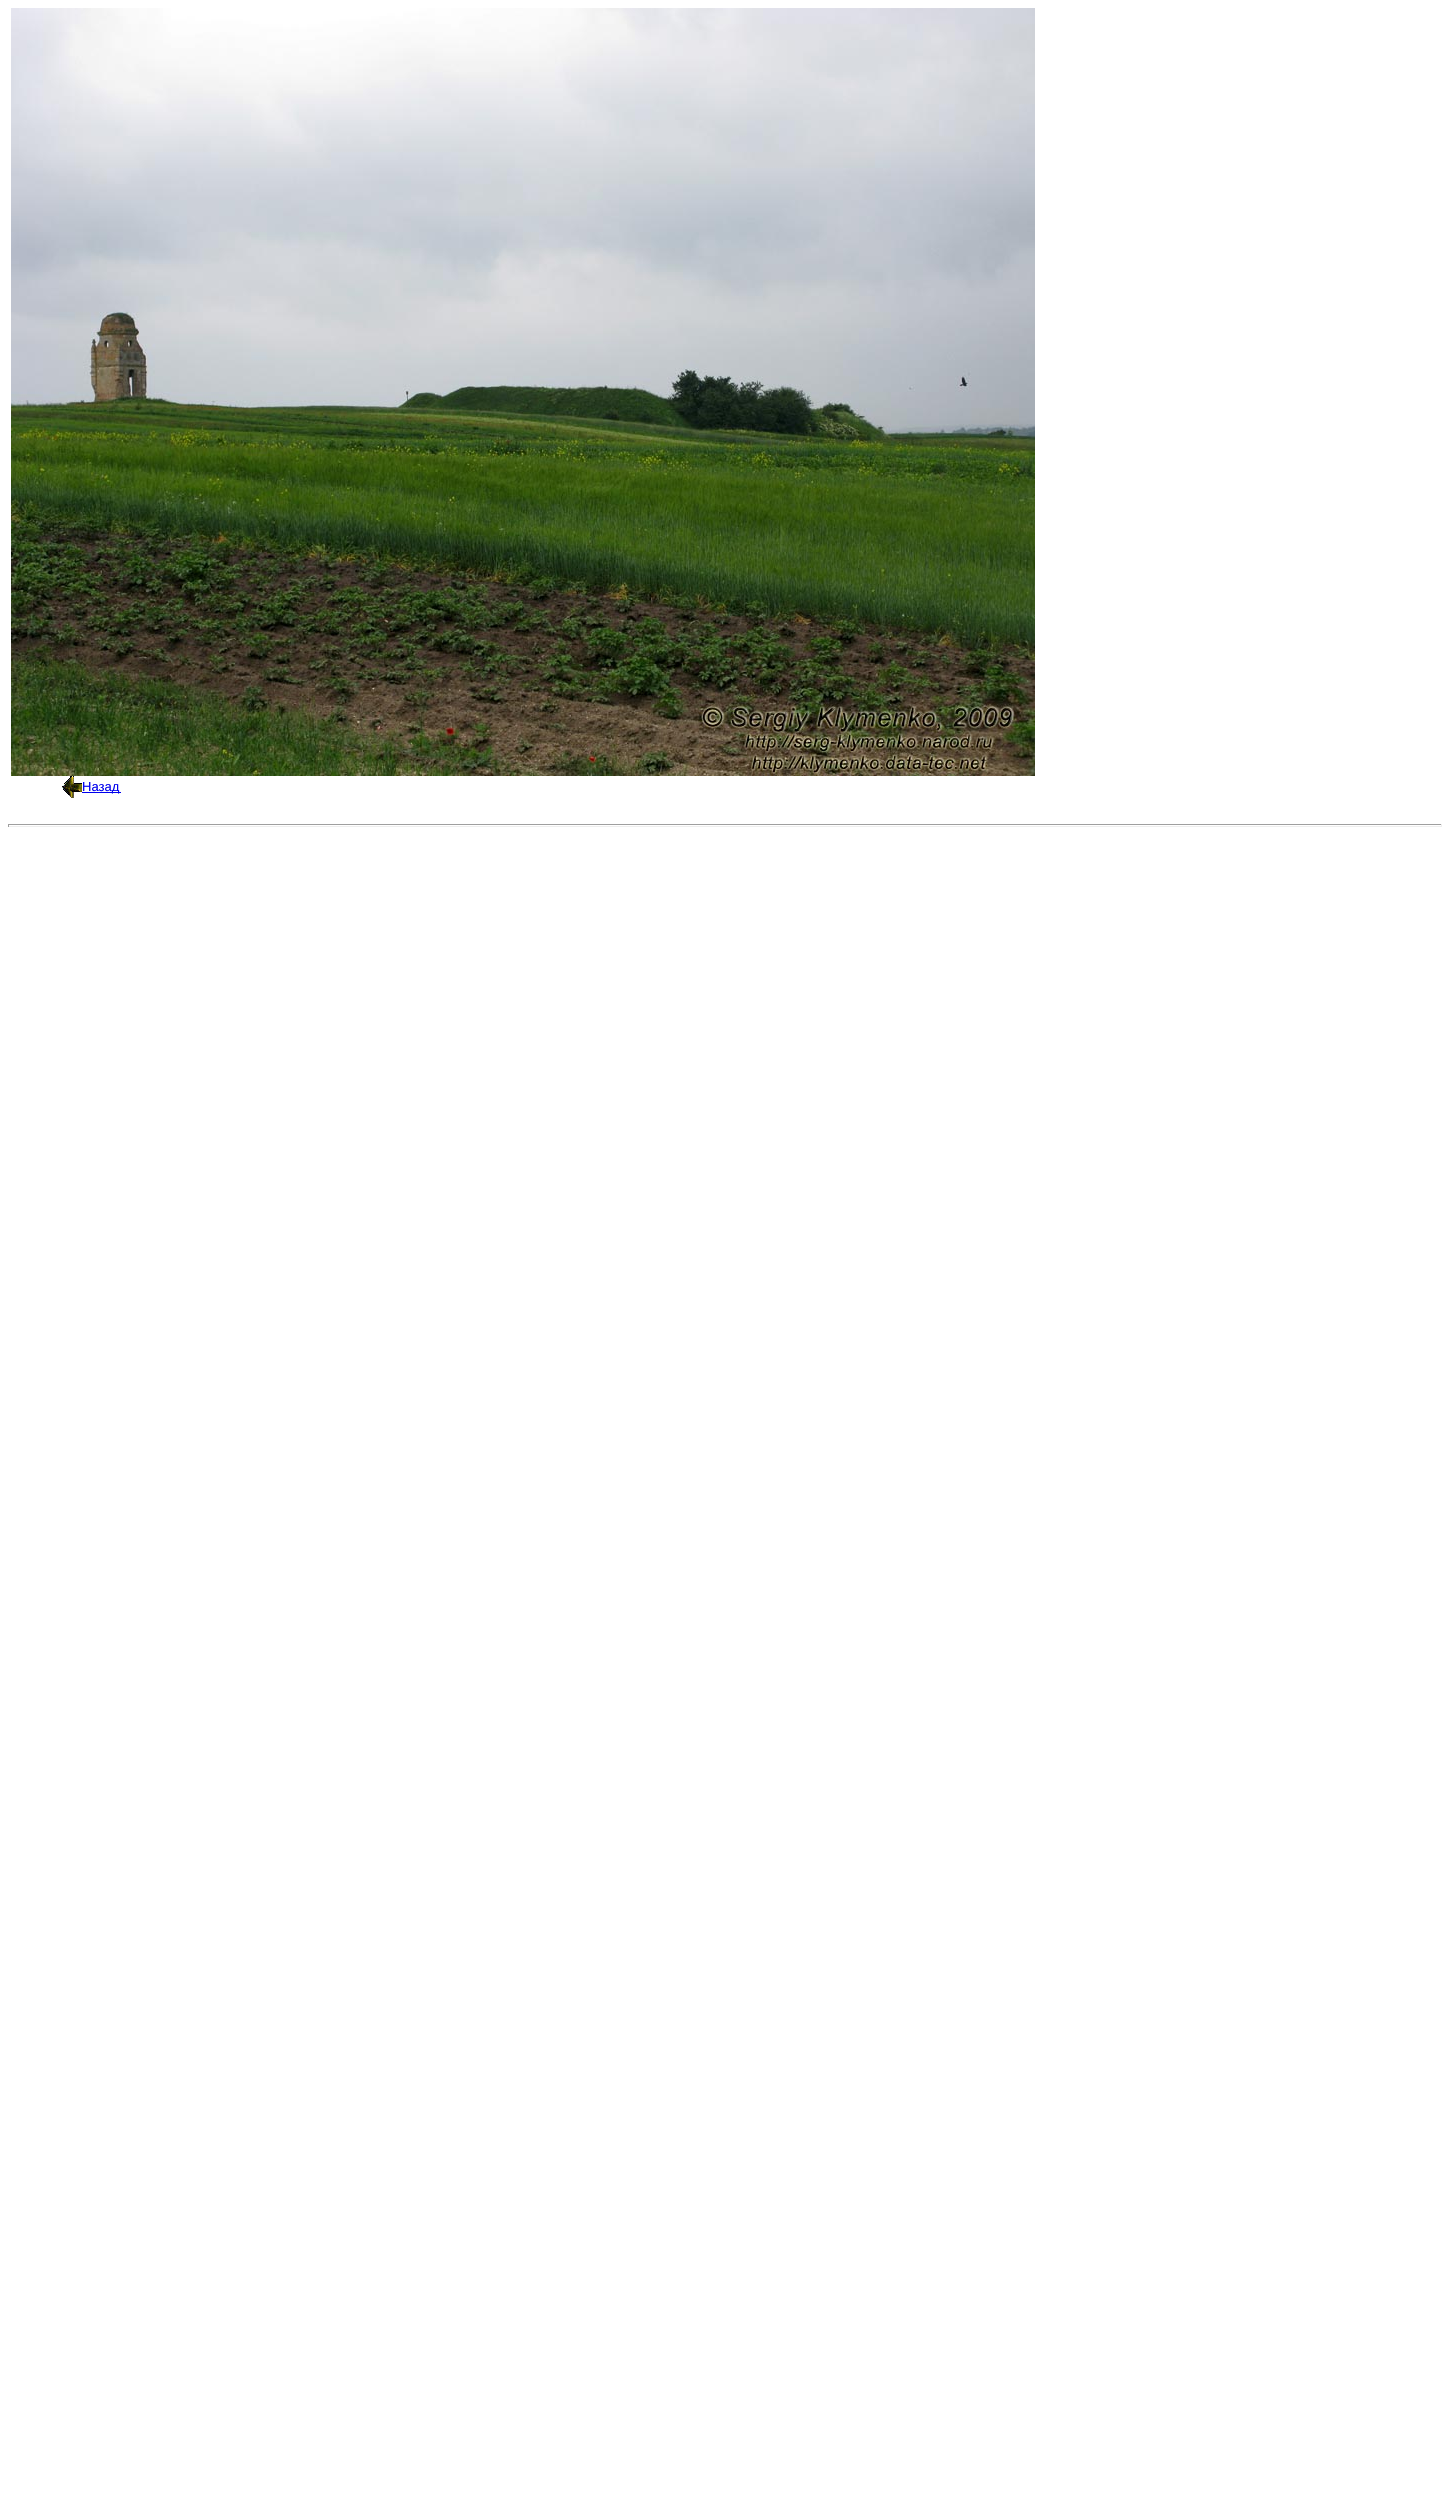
void draw(SkCanvas* canvas) {
    SkPaint paint;
    paint.setAntiAlias(true);
    canvas->clear(0xFFFFFFFF);
    canvas->drawImageRect(SkImages::DeferredFromEncodedData(SkData::MakeFromFileName("img1.png")), SkRect::MakeXYWH(11, 8, 1024, 768), SkSamplingOptions());
    canvas->drawImageRect(SkImages::DeferredFromEncodedData(SkData::MakeFromFileName("img2.png")), SkRect::MakeXYWH(62, 776, 20, 22), SkSamplingOptions());
    paint.setColor(0xFF0000EE);
    canvas->drawRect(SkRect::MakeXYWH(82, 792, 39, 1), paint);
    SkFont font1(fontMgr->matchFamilyStyle("Liberation Sans", SkFontStyle::Normal()), 13);
    font1.setSubpixel(true);
    canvas->drawString("Назад", 82, 791, font1, paint);
    paint.setColor(0xFF9F9F9F);
    canvas->drawRect(SkRect::MakeXYWH(8, 824, 1434, 1), paint);
    paint.setColor(0xFFEEEEEE);
    canvas->drawRect(SkRect::MakeXYWH(1441, 824, 1, 3), paint);
    canvas->drawRect(SkRect::MakeXYWH(8, 826, 1434, 1), paint);
    paint.setColor(0xFF9F9F9F);
    canvas->drawRect(SkRect::MakeXYWH(8, 824, 1, 3), paint);
}
